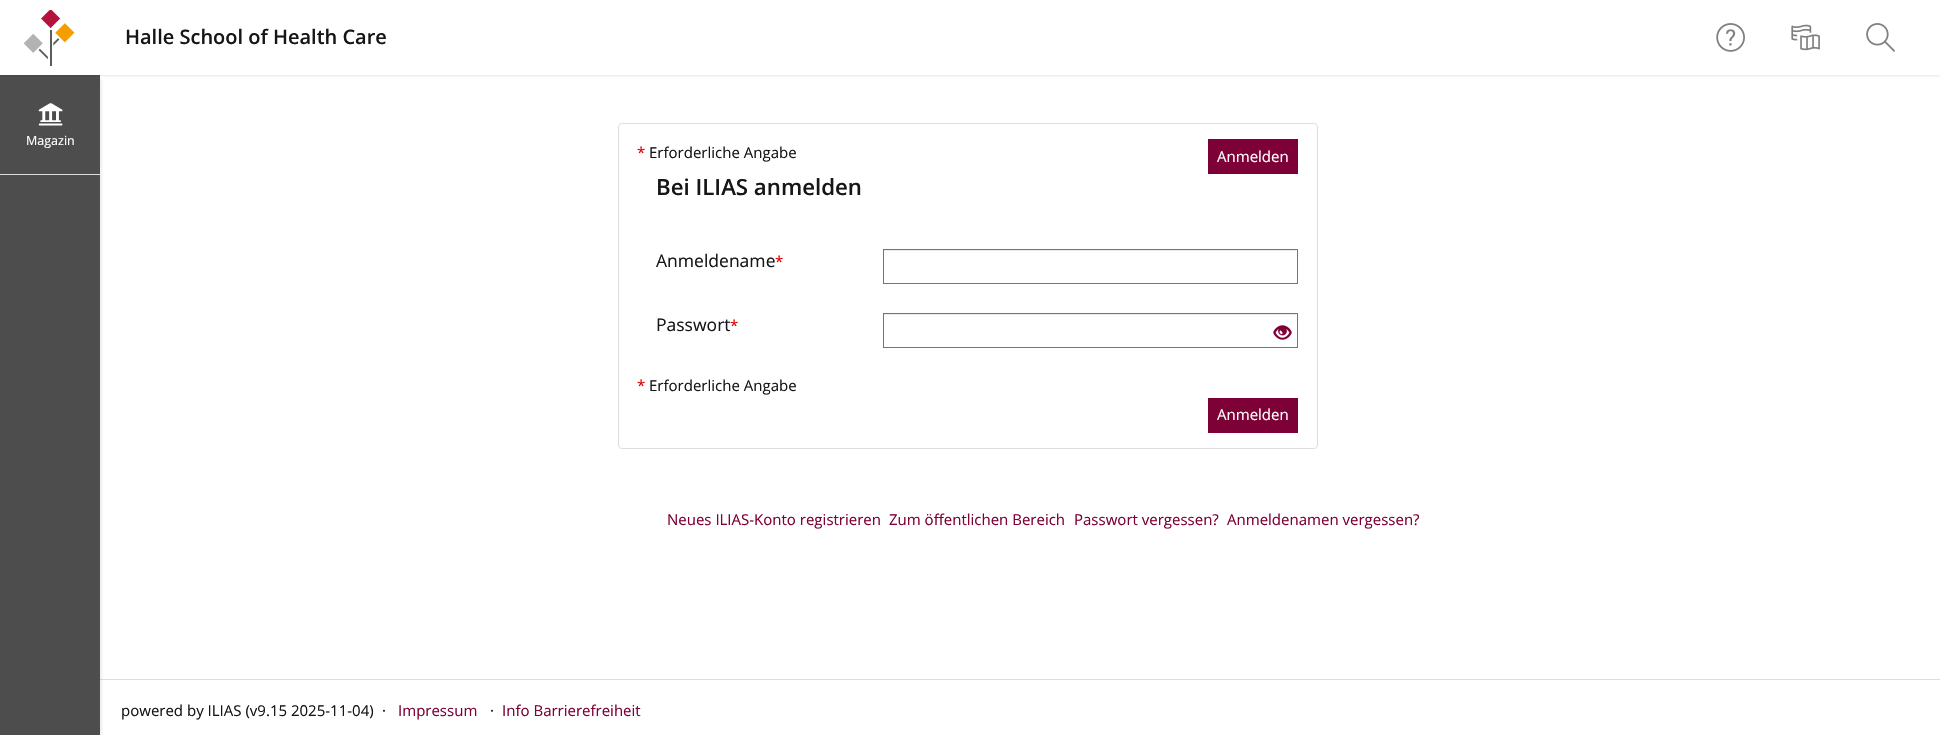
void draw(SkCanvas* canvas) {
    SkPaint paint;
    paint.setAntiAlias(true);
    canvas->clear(0xFFFFFFFF);
    paint.setColor(0xFF4D4D4D);
    canvas->drawRect(SkRect::MakeXYWH(0, 75, 100, 660), paint);
    canvas->save();
    canvas->clipRect(SkRect::MakeXYWH(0, 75, 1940, 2));
    paint.setColor(0x1A000000);
    paint.setMaskFilter(SkMaskFilter::MakeBlur(kNormal_SkBlurStyle, 1));
    canvas->drawRect(SkRect::MakeXYWH(0, 1, 1940, 75), paint);
    paint.setMaskFilter(nullptr);
    canvas->restore();
    canvas->drawImageRect(SkImages::DeferredFromEncodedData(SkData::MakeFromFileName("img1.png")), SkRect::MakeXYWH(23, 10, 52, 56), SkSamplingOptions());
    SkFont font1(fontMgr->matchFamilyStyle("Open Sans", SkFontStyle(600, SkFontStyle::kNormal_Width, SkFontStyle::kUpright_Slant)), 20);
    font1.setSubpixel(true);
    paint.setColor(0xFF161616);
    canvas->drawString("Halle School of Health Care", 125, 44, font1, paint);
    canvas->drawImageRect(SkImages::DeferredFromEncodedData(SkData::MakeFromFileName("img2.png")), SkRect::MakeXYWH(1716, 23, 29, 29), SkSamplingOptions());
    canvas->drawImageRect(SkImages::DeferredFromEncodedData(SkData::MakeFromFileName("img3.png")), SkRect::MakeXYWH(1791, 24, 29, 27), SkSamplingOptions());
    canvas->drawImageRect(SkImages::DeferredFromEncodedData(SkData::MakeFromFileName("img4.png")), SkRect::MakeXYWH(1866, 23, 29, 29), SkSamplingOptions());
    paint.setColor(0xFFDDDDDD);
    canvas->drawRect(SkRect::MakeXYWH(100, 679, 1840, 1), paint);
    canvas->save();
    canvas->clipRect(SkRect::MakeXYWH(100, 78, 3, 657));
    paint.setColor(0x1A000000);
    paint.setMaskFilter(SkMaskFilter::MakeBlur(kNormal_SkBlurStyle, 2.5f));
    canvas->drawRect(SkRect::MakeXYWH(1, 79, 100, 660), paint);
    paint.setMaskFilter(nullptr);
    canvas->restore();
    paint.setColor(0xFFDDDDDD);
    canvas->drawRect(SkRect::MakeXYWH(0, 174, 100, 1), paint);
    canvas->drawImageRect(SkImages::DeferredFromEncodedData(SkData::MakeFromFileName("img5.png")), SkRect::MakeXYWH(38, 103, 25, 23), SkSamplingOptions());
    SkFont font2(fontMgr->matchFamilyStyle("Open Sans", SkFontStyle::Normal()), 12.5f);
    font2.setSubpixel(true);
    paint.setColor(0xFFFFFFFF);
    canvas->drawString("Magazin", 26, 145, font2, paint);
    paint.setStyle(SkPaint::kStroke_Style);
    paint.setStrokeWidth(1);
    paint.setColor(0xFFDDDDDD);
    canvas->drawRoundRect(SkRect::MakeXYWH(618.5f, 123.5f, 699, 325), 3.5f, 3.5f, paint);
    SkFont font3(fontMgr->matchFamilyStyle("Open Sans", SkFontStyle::Normal()), 15);
    font3.setSubpixel(true);
    paint.setStyle(SkPaint::kFill_Style);
    paint.setColor(0xFFDD0000);
    canvas->drawString("*", 637, 158, font3, paint);
    paint.setColor(0xFF161616);
    canvas->drawString("Erforderliche Angabe", 649, 158, font3, paint);
    paint.setColor(0xFF7D0036);
    canvas->drawRect(SkRect::MakeXYWH(1208, 139, 90, 35), paint);
    paint.setColor(0xFFFFFFFF);
    canvas->drawString("Anmelden", 1217, 162, font3, paint);
    SkFont font4(fontMgr->matchFamilyStyle("Open Sans", SkFontStyle(600, SkFontStyle::kNormal_Width, SkFontStyle::kUpright_Slant)), 22.25f);
    font4.setSubpixel(true);
    paint.setColor(0xFF161616);
    canvas->drawString("Bei ILIAS anmelden", 656, 195, font4, paint);
    SkFont font5(fontMgr->matchFamilyStyle("Open Sans", SkFontStyle::Normal()), 17.5f);
    font5.setSubpixel(true);
    canvas->drawString("Anmeldename", 656, 267, font5, paint);
    paint.setColor(0xFFDD0000);
    canvas->drawString("*", 775, 267, font3, paint);
    paint.setColor(0xFFECECEC);
    canvas->drawRect(SkRect::MakeXYWH(884, 250, 412, 1), paint);
    paint.setStyle(SkPaint::kStroke_Style);
    paint.setColor(0xFF757575);
    canvas->drawRect(SkRect::MakeXYWH(883.5f, 249.5f, 414, 34), paint);
    paint.setStyle(SkPaint::kFill_Style);
    paint.setColor(0xFF161616);
    canvas->drawString("Passwort", 656, 331, font5, paint);
    paint.setColor(0xFFDD0000);
    canvas->drawString("*", 730, 331, font3, paint);
    paint.setColor(0xFFECECEC);
    canvas->drawRect(SkRect::MakeXYWH(884, 314, 412, 1), paint);
    paint.setStyle(SkPaint::kStroke_Style);
    paint.setColor(0xFF757575);
    canvas->drawRect(SkRect::MakeXYWH(883.5f, 313.5f, 414, 34), paint);
    canvas->drawImageRect(SkImages::DeferredFromEncodedData(SkData::MakeFromFileName("img6.png")), SkRect::MakeXYWH(1273, 325, 19, 15), SkSamplingOptions());
    paint.setStyle(SkPaint::kFill_Style);
    paint.setColor(0xFFDD0000);
    canvas->drawString("*", 637, 391, font3, paint);
    paint.setColor(0xFF161616);
    canvas->drawString("Erforderliche Angabe", 649, 391, font3, paint);
    paint.setColor(0xFF7D0036);
    canvas->drawRect(SkRect::MakeXYWH(1208, 398, 90, 35), paint);
    paint.setColor(0xFFFFFFFF);
    canvas->drawString("Anmelden", 1217, 420, font3, paint);
    paint.setColor(0xFF7D0036);
    canvas->drawString("Neues ILIAS-Konto registrieren", 667, 525, font3, paint);
    canvas->drawString("Zum öffentlichen Bereich", 889, 525, font3, paint);
    canvas->drawString("Passwort vergessen?", 1074, 525, font3, paint);
    canvas->drawString("Anmeldenamen vergessen?", 1227, 525, font3, paint);
    paint.setColor(0xFF161616);
    canvas->drawString("powered by ILIAS (v9.15 2025-11-04)", 121, 716, font3, paint);
    canvas->drawString("·", 382, 716, font3, paint);
    paint.setColor(0xFF7D0036);
    canvas->drawString("Impressum", 398, 716, font3, paint);
    paint.setColor(0xFF161616);
    canvas->drawString("·", 490, 716, font3, paint);
    paint.setColor(0xFF7D0036);
    canvas->drawString("Info Barrierefreiheit", 502, 716, font3, paint);
}
